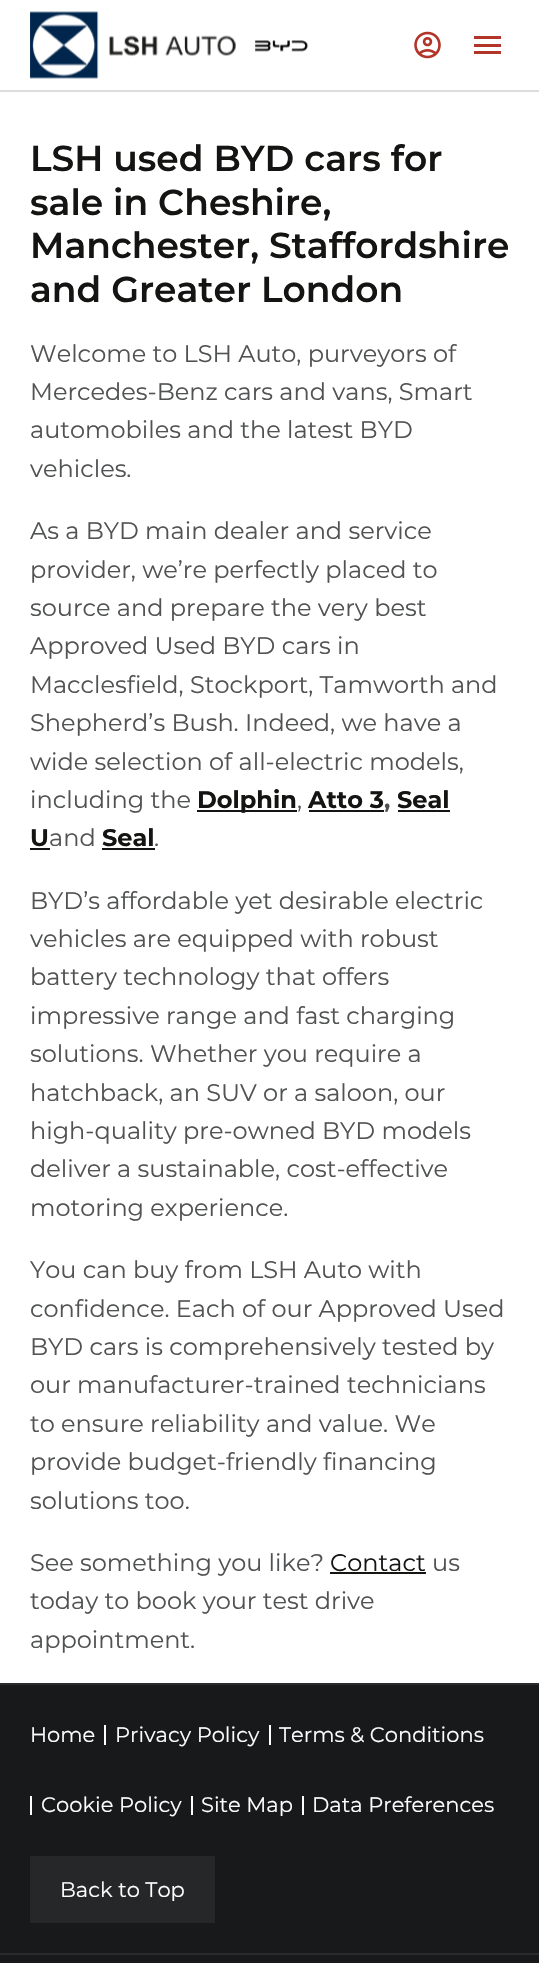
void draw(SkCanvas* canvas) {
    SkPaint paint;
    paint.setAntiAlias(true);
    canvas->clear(0xFFFFFFFF);
    paint.setColor(0xFFDDDDDD);
    canvas->drawRect(SkRect::MakeXYWH(0, 90, 539, 2), paint);
    canvas->drawImageRect(SkImages::DeferredFromEncodedData(SkData::MakeFromFileName("img1.png")), SkRect::MakeXYWH(30, 11, 206, 68), SkSamplingOptions());
    canvas->drawImageRect(SkImages::DeferredFromEncodedData(SkData::MakeFromFileName("img2.png")), SkRect::MakeXYWH(255, 40, 53, 12), SkSamplingOptions());
    canvas->drawImageRect(SkImages::DeferredFromEncodedData(SkData::MakeFromFileName("img3.png")), SkRect::MakeXYWH(414, 31, 27, 28), SkSamplingOptions());
    paint.setColor(0xFFB23529);
    canvas->drawRect(SkRect::MakeXYWH(474, 44, 27, 3), paint);
    canvas->drawRect(SkRect::MakeXYWH(474, 36, 27, 3), paint);
    canvas->drawRect(SkRect::MakeXYWH(474, 51, 27, 3), paint);
    SkFont font1(fontMgr->matchFamilyStyle("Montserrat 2", SkFontStyle(100, SkFontStyle::kNormal_Width, SkFontStyle::kUpright_Slant)), 36);
    font1.setSubpixel(true);
    paint.setColor(0xFF141413);
    canvas->drawString("LSH used BYD cars for", 30, 171, font1, paint);
    canvas->drawString("sale in Cheshire,", 30, 215, font1, paint);
    canvas->drawString("Manchester, Staffordshire", 30, 258, font1, paint);
    canvas->drawString("and Greater London", 30, 302, font1, paint);
    SkFont font2(fontMgr->matchFamilyStyle("Montserrat", SkFontStyle(100, SkFontStyle::kNormal_Width, SkFontStyle::kUpright_Slant)), 24);
    font2.setSubpixel(true);
    paint.setColor(0xFF515253);
    canvas->drawString("Welcome to LSH Auto, purveyors of", 30, 362, font2, paint);
    canvas->drawString("Mercedes-Benz cars and vans, Smart", 30, 400, font2, paint);
    canvas->drawString("automobiles and the latest BYD", 30, 438, font2, paint);
    canvas->drawString("vehicles.", 30, 477, font2, paint);
    canvas->drawString("As a BYD main dealer and service", 30, 539, font2, paint);
    canvas->drawString("provider, we’re perfectly placed to", 30, 578, font2, paint);
    canvas->drawString("source and prepare the very best", 30, 616, font2, paint);
    canvas->drawString("Approved Used BYD cars in", 30, 654, font2, paint);
    canvas->drawString("Macclesfield, Stockport, Tamworth and", 30, 693, font2, paint);
    canvas->drawString("Shepherd’s Bush. Indeed, we have a", 30, 731, font2, paint);
    canvas->drawString("wide selection of all-electric models,", 30, 770, font2, paint);
    canvas->drawString("including the", 30, 808, font2, paint);
    paint.setColor(0xFF141413);
    canvas->drawRect(SkRect::MakeXYWH(197, 810, 100, 2), paint);
    SkFont font3(fontMgr->matchFamilyStyle("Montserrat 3", SkFontStyle(100, SkFontStyle::kNormal_Width, SkFontStyle::kUpright_Slant)), 24);
    font3.setSubpixel(true);
    canvas->drawString("Dolphin", 197, 808, font3, paint);
    paint.setColor(0xFF515253);
    canvas->drawString(",", 297, 808, font2, paint);
    paint.setColor(0xFF141413);
    canvas->drawString("Atto 3", 308, 808, font3, paint);
    paint.setColor(0xFF515253);
    canvas->drawString(",", 384, 808, font3, paint);
    paint.setColor(0xFF141413);
    canvas->drawRect(SkRect::MakeXYWH(309, 810, 75, 2), paint);
    canvas->drawRect(SkRect::MakeXYWH(398, 810, 52, 2), paint);
    canvas->drawString("Seal", 397, 808, font3, paint);
    canvas->drawString("U", 30, 846, font3, paint);
    canvas->drawRect(SkRect::MakeXYWH(30, 848, 20, 2), paint);
    paint.setColor(0xFF515253);
    canvas->drawString("and", 49, 846, font2, paint);
    paint.setColor(0xFF141413);
    canvas->drawString("Seal", 102, 846, font3, paint);
    canvas->drawRect(SkRect::MakeXYWH(102, 848, 53, 2), paint);
    paint.setColor(0xFF515253);
    canvas->drawString(".", 154, 846, font2, paint);
    canvas->drawString("BYD’s affordable yet desirable electric", 30, 909, font2, paint);
    canvas->drawString("vehicles are equipped with robust", 30, 947, font2, paint);
    canvas->drawString("battery technology that offers", 30, 985, font2, paint);
    canvas->drawString("impressive range and fast charging", 30, 1024, font2, paint);
    canvas->drawString("solutions. Whether you require a", 30, 1062, font2, paint);
    canvas->drawString("hatchback, an SUV or a saloon, our", 30, 1101, font2, paint);
    canvas->drawString("high-quality pre-owned BYD models", 30, 1139, font2, paint);
    canvas->drawString("deliver a sustainable, cost-effective", 30, 1177, font2, paint);
    canvas->drawString("motoring experience.", 30, 1216, font2, paint);
    canvas->drawString("You can buy from LSH Auto with", 30, 1278, font2, paint);
    canvas->drawString("confidence. Each of our Approved Used", 30, 1317, font2, paint);
    canvas->drawString("BYD cars is comprehensively tested by", 30, 1355, font2, paint);
    canvas->drawString("our manufacturer-trained technicians", 30, 1393, font2, paint);
    canvas->drawString("to ensure reliability and value. We", 30, 1432, font2, paint);
    canvas->drawString("provide budget-friendly financing", 30, 1470, font2, paint);
    canvas->drawString("solutions too.", 30, 1509, font2, paint);
    canvas->drawString("See something you like?", 30, 1571, font2, paint);
    paint.setColor(0xFF141413);
    canvas->drawString("Contact", 330, 1571, font2, paint);
    canvas->drawRect(SkRect::MakeXYWH(330, 1572, 96, 2), paint);
    paint.setColor(0xFF515253);
    canvas->drawString("us", 432, 1571, font2, paint);
    canvas->drawString("today to book your test drive", 30, 1609, font2, paint);
    canvas->drawString("appointment.", 30, 1648, font2, paint);
    paint.setColor(0xFF18191B);
    canvas->drawRect(SkRect::MakeXYWH(0, 1685, 539, 278), paint);
    paint.setColor(0xFF292B2D);
    canvas->drawRect(SkRect::MakeXYWH(0, 1683, 539, 2), paint);
    SkFont font4(fontMgr->matchFamilyStyle("Montserrat", SkFontStyle(100, SkFontStyle::kNormal_Width, SkFontStyle::kUpright_Slant)), 21);
    font4.setSubpixel(true);
    paint.setColor(0xFFFFFFFF);
    canvas->drawString("Home", 30, 1742, font4, paint);
    canvas->drawRect(SkRect::MakeXYWH(104, 1725, 2, 20), paint);
    canvas->drawString("Privacy Policy", 115, 1742, font4, paint);
    canvas->drawRect(SkRect::MakeXYWH(269, 1725, 2, 20), paint);
    canvas->drawString("Terms & Conditions", 279, 1742, font4, paint);
    canvas->drawRect(SkRect::MakeXYWH(30, 1796, 2, 19), paint);
    canvas->drawString("Cookie Policy", 41, 1812, font4, paint);
    canvas->drawRect(SkRect::MakeXYWH(191, 1796, 2, 19), paint);
    canvas->drawString("Site Map", 201, 1812, font4, paint);
    canvas->drawRect(SkRect::MakeXYWH(302, 1796, 2, 19), paint);
    canvas->drawString("Data Preferences", 312, 1812, font4, paint);
    paint.setColor(0xFF252728);
    canvas->drawRect(SkRect::MakeXYWH(30, 1856, 185, 67), paint);
    paint.setColor(0xFFFFFFFF);
    canvas->drawString("Back to Top", 60, 1897, font4, paint);
    paint.setColor(0xFF292B2D);
    canvas->drawRect(SkRect::MakeXYWH(0, 1953, 539, 2), paint);
}
